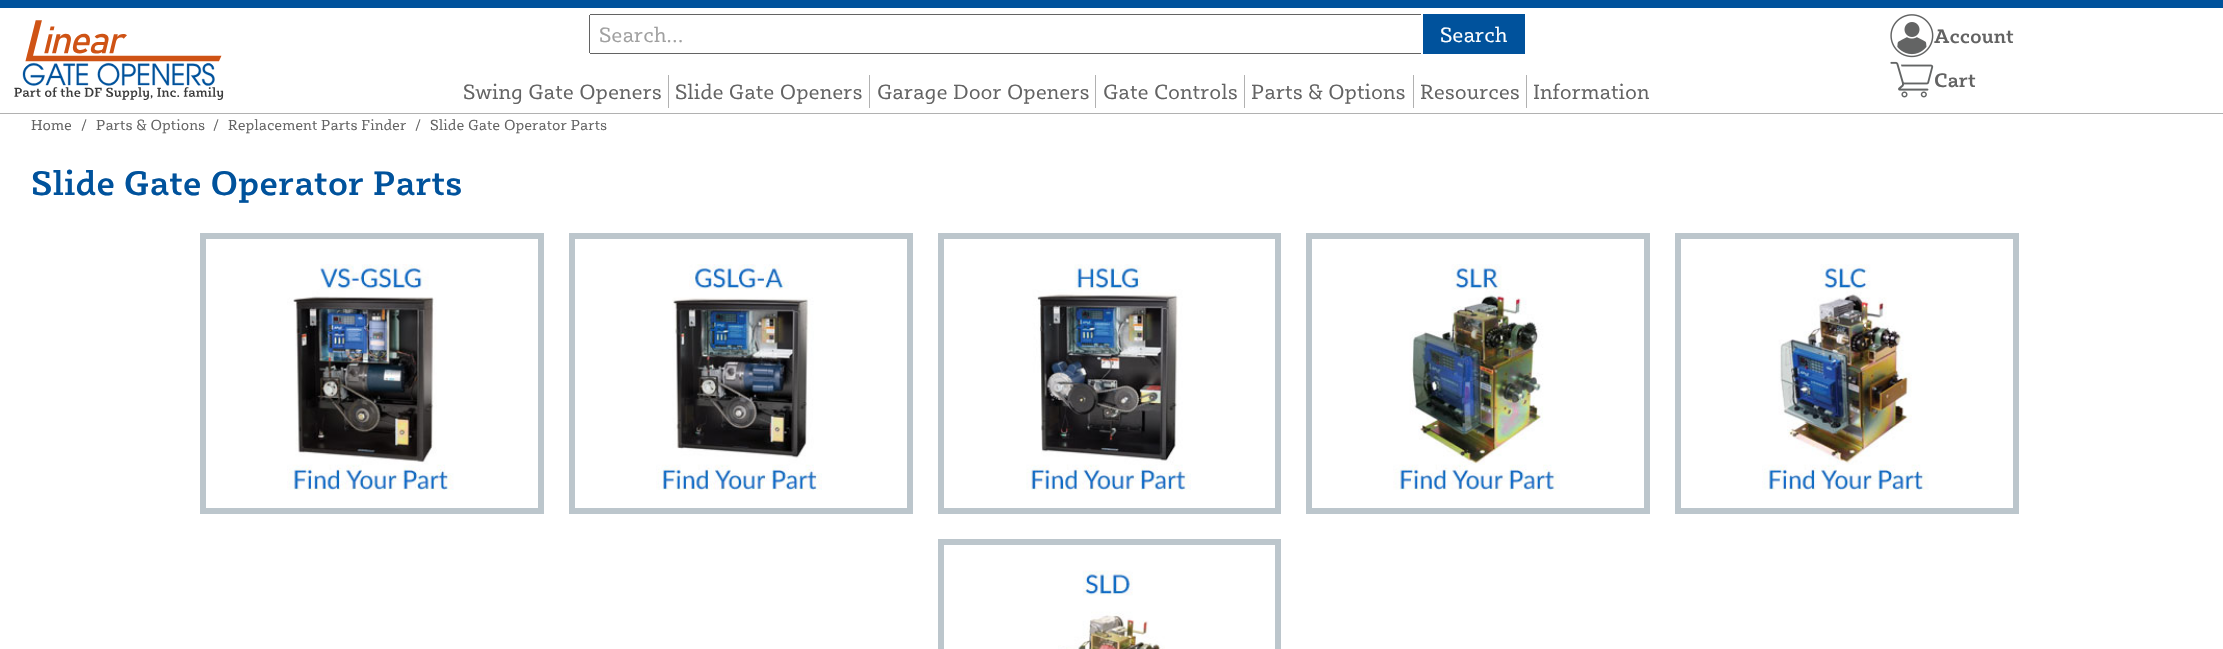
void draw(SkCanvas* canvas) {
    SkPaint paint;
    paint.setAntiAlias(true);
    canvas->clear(0xFFFFFFFF);
    paint.setColor(0xFF00529C);
    canvas->drawRect(SkRect::MakeXYWH(0, 0, 2223, 8), paint);
    paint.setColor(0xFFB1B1B1);
    canvas->drawRect(SkRect::MakeXYWH(0, 113, 2223, 1), paint);
    canvas->drawImageRect(SkImages::DeferredFromEncodedData(SkData::MakeFromFileName("img1.png")), SkRect::MakeXYWH(14, 20, 210, 80), SkSamplingOptions());
    paint.setColor(0xFF636363);
    canvas->drawRect(SkRect::MakeXYWH(590, 14, 831, 1), paint);
    canvas->drawRect(SkRect::MakeXYWH(590, 53, 831, 1), paint);
    canvas->drawRect(SkRect::MakeXYWH(589, 15, 1, 38), paint);
    SkFont font1(fontMgr->matchFamilyStyle("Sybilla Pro", SkFontStyle::Normal()), 21.25f);
    font1.setSubpixel(true);
    paint.setColor(0xFFA0A0A0);
    canvas->drawString("Search...", 599, 42, font1, paint);
    {
        const SkColor colors[] = {0xFF00529C, 0xFF00529C, 0xFF007CE8, 0xFF00529C, 0xFF00529C};
        const float stops[] = {0, 0.13f, 0.2f, 0.27f, 1};
        const SkPoint ends[] = {{1239, 110}, {1504, -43}};
        paint.setShader(SkGradientShader::MakeLinear(ends, colors, stops, 5, SkTileMode::kClamp));
        paint.setAlpha(255);
    }
    canvas->drawRect(SkRect::MakeXYWH(1423, 14, 102, 40), paint);
    paint.setShader(nullptr);
    paint.setColor(0xFFFFFFFF);
    canvas->drawString("Search", 1440, 42, font1, paint);
    canvas->drawImageRect(SkImages::DeferredFromEncodedData(SkData::MakeFromFileName("img2.png")), SkRect::MakeXYWH(1890, 14, 44, 44), SkSamplingOptions());
    SkFont font2(fontMgr->matchFamilyStyle("Sybilla Pro", SkFontStyle(500, SkFontStyle::kNormal_Width, SkFontStyle::kUpright_Slant)), 20);
    font2.setSubpixel(true);
    paint.setColor(0xFF636363);
    canvas->drawString("Account", 1934, 43, font2, paint);
    canvas->drawImageRect(SkImages::DeferredFromEncodedData(SkData::MakeFromFileName("img3.png")), SkRect::MakeXYWH(1890, 61, 44, 37), SkSamplingOptions());
    canvas->drawString("Cart", 1934, 87, font2, paint);
    paint.setColor(0xFFB1B1B1);
    canvas->drawRect(SkRect::MakeXYWH(668, 75, 1, 33), paint);
    paint.setColor(0xFF636363);
    canvas->drawString("Swing Gate Openers", 463, 99, font1, paint);
    paint.setColor(0xFFB1B1B1);
    canvas->drawRect(SkRect::MakeXYWH(869, 75, 1, 33), paint);
    paint.setColor(0xFF636363);
    canvas->drawString("Slide Gate Openers", 675, 99, font1, paint);
    paint.setColor(0xFFB1B1B1);
    canvas->drawRect(SkRect::MakeXYWH(1095, 75, 1, 33), paint);
    paint.setColor(0xFF636363);
    canvas->drawString("Garage Door Openers", 877, 99, font1, paint);
    paint.setColor(0xFFB1B1B1);
    canvas->drawRect(SkRect::MakeXYWH(1244, 75, 1, 33), paint);
    paint.setColor(0xFF636363);
    canvas->drawString("Gate Controls", 1103, 99, font1, paint);
    paint.setColor(0xFFB1B1B1);
    canvas->drawRect(SkRect::MakeXYWH(1413, 75, 1, 33), paint);
    paint.setColor(0xFF636363);
    canvas->drawString("Parts & Options", 1251, 99, font1, paint);
    paint.setColor(0xFFB1B1B1);
    canvas->drawRect(SkRect::MakeXYWH(1526, 75, 1, 33), paint);
    paint.setColor(0xFF636363);
    canvas->drawString("Resources", 1420, 99, font1, paint);
    canvas->drawString("Information", 1533, 99, font1, paint);
    SkFont font3(fontMgr->matchFamilyStyle("Sybilla Pro", SkFontStyle::Normal()), 15);
    font3.setSubpixel(true);
    canvas->drawString("Home", 31, 130, font3, paint);
    canvas->drawString("/", 81, 130, font3, paint);
    canvas->drawString("Parts & Options", 96, 130, font3, paint);
    canvas->drawString("/", 213, 130, font3, paint);
    canvas->drawString("Replacement Parts Finder", 228, 130, font3, paint);
    canvas->drawString("/", 415, 130, font3, paint);
    canvas->drawString("Slide Gate Operator Parts", 430, 130, font3, paint);
    SkFont font4(fontMgr->matchFamilyStyle("Sybilla Pro", SkFontStyle(500, SkFontStyle::kNormal_Width, SkFontStyle::kUpright_Slant)), 35);
    font4.setSubpixel(true);
    paint.setColor(0xFF00529C);
    canvas->drawString("Slide Gate Operator Parts", 31, 195, font4, paint);
    paint.setStyle(SkPaint::kStroke_Style);
    paint.setStrokeWidth(6);
    paint.setColor(0xFFBCC6CC);
    canvas->drawRect(SkRect::MakeXYWH(203, 236, 338, 275), paint);
    canvas->drawImageRect(SkImages::DeferredFromEncodedData(SkData::MakeFromFileName("img4.png")), SkRect::MakeXYWH(287, 264, 167, 226), SkSamplingOptions());
    canvas->drawRect(SkRect::MakeXYWH(572, 236, 338, 275), paint);
    canvas->drawImageRect(SkImages::DeferredFromEncodedData(SkData::MakeFromFileName("img5.png")), SkRect::MakeXYWH(656, 264, 166, 226), SkSamplingOptions());
    canvas->drawRect(SkRect::MakeXYWH(941, 236, 337, 275), paint);
    canvas->drawImageRect(SkImages::DeferredFromEncodedData(SkData::MakeFromFileName("img6.png")), SkRect::MakeXYWH(1026, 264, 165, 226), SkSamplingOptions());
    canvas->drawRect(SkRect::MakeXYWH(1309, 236, 338, 275), paint);
    canvas->drawImageRect(SkImages::DeferredFromEncodedData(SkData::MakeFromFileName("img7.png")), SkRect::MakeXYWH(1393, 264, 167, 226), SkSamplingOptions());
    canvas->drawRect(SkRect::MakeXYWH(1678, 236, 338, 275), paint);
    canvas->drawImageRect(SkImages::DeferredFromEncodedData(SkData::MakeFromFileName("img8.png")), SkRect::MakeXYWH(1762, 264, 167, 226), SkSamplingOptions());
    canvas->drawRect(SkRect::MakeXYWH(941, 542, 337, 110), paint);
    canvas->drawImageRect(SkImages::DeferredFromEncodedData(SkData::MakeFromFileName("img9.png")), SkRect::MakeXYWH(1058, 570, 107, 79), SkSamplingOptions());
}
